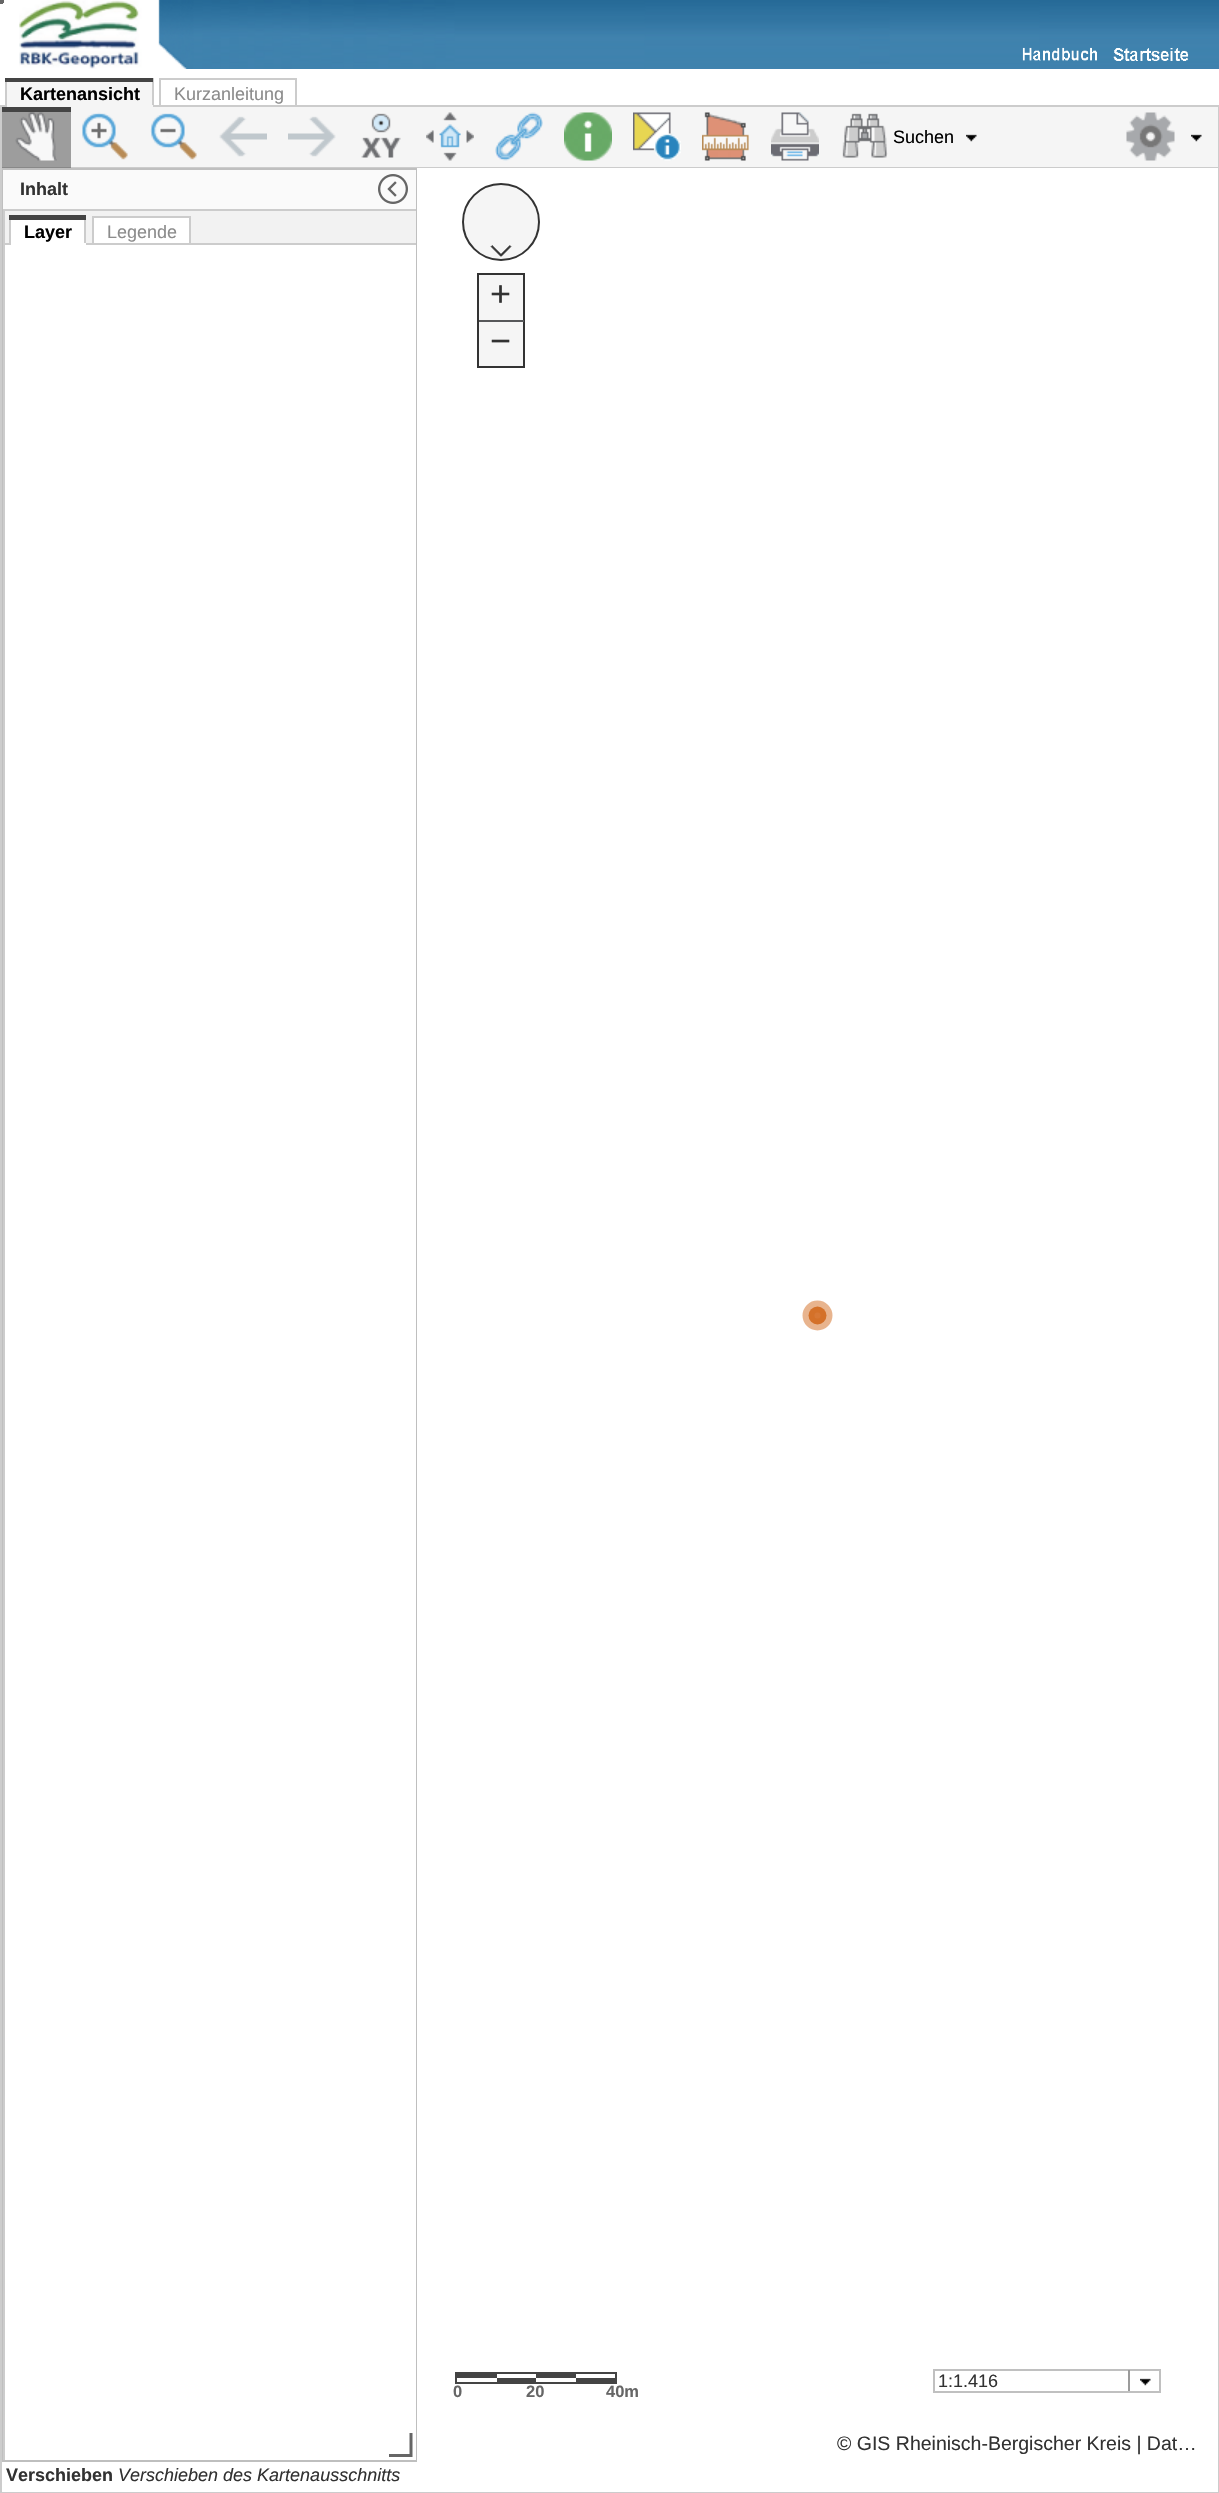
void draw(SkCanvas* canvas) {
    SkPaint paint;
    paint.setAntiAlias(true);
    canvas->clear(0xFFFFFFFF);
    paint.setColor(0xFF666666);
    canvas->drawRect(SkRect::MakeXYWH(0, 0, 3, 2), paint);
    canvas->drawRect(SkRect::MakeXYWH(2, 0, 2, 3), paint);
    canvas->drawRect(SkRect::MakeXYWH(0, 2, 3, 2), paint);
    canvas->drawImageRect(SkImages::DeferredFromEncodedData(SkData::MakeFromFileName("img1.png")), SkRect::MakeXYWH(19, 0, 1200, 69), SkSamplingOptions());
    canvas->drawImageRect(SkImages::DeferredFromEncodedData(SkData::MakeFromFileName("img2.png")), SkRect::MakeXYWH(1022, 47, 75, 14), SkSamplingOptions());
    canvas->drawImageRect(SkImages::DeferredFromEncodedData(SkData::MakeFromFileName("img3.png")), SkRect::MakeXYWH(1113, 48, 76, 13), SkSamplingOptions());
    paint.setColor(0xFFCCCCCC);
    canvas->drawRect(SkRect::MakeXYWH(0, 105, 1219, 2), paint);
    paint.setColor(0xFFF5F5F5);
    canvas->drawRect(SkRect::MakeXYWH(7, 82, 145, 23), paint);
    paint.setColor(0xFFCCCCCC);
    canvas->drawRect(SkRect::MakeXYWH(152, 78, 2, 29), paint);
    paint.setColor(0xFFF5F5F5);
    canvas->drawRect(SkRect::MakeXYWH(5, 105, 148, 2), paint);
    paint.setColor(0xFFCCCCCC);
    canvas->drawRect(SkRect::MakeXYWH(5, 78, 2, 29), paint);
    paint.setColor(0xFF444444);
    canvas->drawRect(SkRect::MakeXYWH(5, 78, 148, 4), paint);
    SkFont font1(fontMgr->matchFamilyStyle("Liberation Sans", SkFontStyle::Bold()), 18);
    font1.setSubpixel(true);
    paint.setColor(0xFF000000);
    canvas->drawString("Kartenansicht", 20, 100, font1, paint);
    paint.setStyle(SkPaint::kStroke_Style);
    paint.setStrokeWidth(2);
    paint.setColor(0xFFCCCCCC);
    canvas->drawRect(SkRect::MakeXYWH(160, 79, 136, 27), paint);
    SkFont font2(fontMgr->matchFamilyStyle("Liberation Sans", SkFontStyle::Normal()), 18);
    font2.setSubpixel(true);
    paint.setStyle(SkPaint::kFill_Style);
    paint.setColor(0xFF8C8C8C);
    canvas->drawString("Kurzanleitung", 174, 100, font2, paint);
    paint.setColor(0xFFCCCCCC);
    canvas->drawRect(SkRect::MakeXYWH(1218, 107, 1, 2386), paint);
    canvas->drawRect(SkRect::MakeXYWH(0, 2492, 1219, 1), paint);
    canvas->drawRect(SkRect::MakeXYWH(0, 107, 2, 2386), paint);
    paint.setColor(0xFFF5F5F5);
    canvas->drawRect(SkRect::MakeXYWH(71, 107, 1147, 60), paint);
    paint.setColor(0xFF9D9D9D);
    canvas->drawRect(SkRect::MakeXYWH(2, 112, 69, 55), paint);
    paint.setColor(0xFFCCCCCC);
    canvas->drawRect(SkRect::MakeXYWH(71, 167, 1147, 1), paint);
    paint.setColor(0xFF888888);
    canvas->drawRect(SkRect::MakeXYWH(2, 167, 69, 1), paint);
    paint.setColor(0xFF444444);
    canvas->drawRect(SkRect::MakeXYWH(2, 107, 69, 5), paint);
    canvas->drawImageRect(SkImages::DeferredFromEncodedData(SkData::MakeFromFileName("img4.png")), SkRect::MakeXYWH(15, 112, 42, 49), SkSamplingOptions());
    canvas->drawImageRect(SkImages::DeferredFromEncodedData(SkData::MakeFromFileName("img5.png")), SkRect::MakeXYWH(82, 112, 46, 48), SkSamplingOptions());
    canvas->drawImageRect(SkImages::DeferredFromEncodedData(SkData::MakeFromFileName("img6.png")), SkRect::MakeXYWH(150, 113, 47, 47), SkSamplingOptions());
    canvas->drawImageRect(SkImages::DeferredFromEncodedData(SkData::MakeFromFileName("img7.png")), SkRect::MakeXYWH(219, 116, 48, 41), SkSamplingOptions());
    canvas->drawImageRect(SkImages::DeferredFromEncodedData(SkData::MakeFromFileName("img8.png")), SkRect::MakeXYWH(288, 116, 48, 41), SkSamplingOptions());
    canvas->drawImageRect(SkImages::DeferredFromEncodedData(SkData::MakeFromFileName("img9.png")), SkRect::MakeXYWH(361, 113, 40, 45), SkSamplingOptions());
    canvas->drawImageRect(SkImages::DeferredFromEncodedData(SkData::MakeFromFileName("img10.png")), SkRect::MakeXYWH(426, 112, 48, 49), SkSamplingOptions());
    canvas->drawImageRect(SkImages::DeferredFromEncodedData(SkData::MakeFromFileName("img11.png")), SkRect::MakeXYWH(495, 112, 48, 49), SkSamplingOptions());
    canvas->drawImageRect(SkImages::DeferredFromEncodedData(SkData::MakeFromFileName("img12.png")), SkRect::MakeXYWH(564, 112, 48, 49), SkSamplingOptions());
    canvas->drawImageRect(SkImages::DeferredFromEncodedData(SkData::MakeFromFileName("img13.png")), SkRect::MakeXYWH(633, 112, 48, 49), SkSamplingOptions());
    canvas->drawImageRect(SkImages::DeferredFromEncodedData(SkData::MakeFromFileName("img14.png")), SkRect::MakeXYWH(702, 112, 47, 49), SkSamplingOptions());
    canvas->drawImageRect(SkImages::DeferredFromEncodedData(SkData::MakeFromFileName("img15.png")), SkRect::MakeXYWH(771, 112, 48, 49), SkSamplingOptions());
    canvas->drawImageRect(SkImages::DeferredFromEncodedData(SkData::MakeFromFileName("img16.png")), SkRect::MakeXYWH(842, 113, 46, 45), SkSamplingOptions());
    paint.setColor(0xFF000000);
    canvas->drawString("Suchen", 893, 143, font2, paint);
    canvas->drawImageRect(SkImages::DeferredFromEncodedData(SkData::MakeFromFileName("img17.png")), SkRect::MakeXYWH(966, 134, 11, 8), SkSamplingOptions());
    canvas->drawImageRect(SkImages::DeferredFromEncodedData(SkData::MakeFromFileName("img18.png")), SkRect::MakeXYWH(1126, 112, 49, 49), SkSamplingOptions());
    canvas->drawImageRect(SkImages::DeferredFromEncodedData(SkData::MakeFromFileName("img19.png")), SkRect::MakeXYWH(1191, 134, 11, 8), SkSamplingOptions());
    paint.setStyle(SkPaint::kStroke_Style);
    paint.setColor(0xFFBFBFBF);
    canvas->drawRect(SkRect::MakeXYWH(3, 169, 413, 2292), paint);
    paint.setStyle(SkPaint::kFill_Style);
    paint.setColor(0xFFFAFAFA);
    canvas->drawRect(SkRect::MakeXYWH(3, 170, 413, 39), paint);
    paint.setColor(0xFF323232);
    canvas->drawString("Inhalt", 20, 195, font1, paint);
    canvas->drawImageRect(SkImages::DeferredFromEncodedData(SkData::MakeFromFileName("img20.png")), SkRect::MakeXYWH(378, 174, 30, 30), SkSamplingOptions());
    paint.setColor(0xFFF2F2F2);
    canvas->drawRect(SkRect::MakeXYWH(5, 211, 411, 32), paint);
    paint.setColor(0xFFCCCCCC);
    canvas->drawRect(SkRect::MakeXYWH(3, 209, 413, 2), paint);
    canvas->drawRect(SkRect::MakeXYWH(3, 209, 2, 36), paint);
    canvas->drawRect(SkRect::MakeXYWH(5, 243, 411, 2), paint);
    paint.setColor(0xFFFFFFFF);
    canvas->drawRect(SkRect::MakeXYWH(11, 220, 73, 23), paint);
    paint.setColor(0xFFCCCCCC);
    canvas->drawRect(SkRect::MakeXYWH(84, 216, 2, 29), paint);
    paint.setColor(0xFFFFFFFF);
    canvas->drawRect(SkRect::MakeXYWH(9, 243, 77, 2), paint);
    paint.setColor(0xFFCCCCCC);
    canvas->drawRect(SkRect::MakeXYWH(9, 216, 2, 29), paint);
    paint.setColor(0xFF444444);
    canvas->drawRect(SkRect::MakeXYWH(9, 215, 77, 5), paint);
    paint.setColor(0xFF000000);
    canvas->drawString("Layer", 24, 238, font1, paint);
    paint.setColor(0xFFFFFFFF);
    canvas->drawRect(SkRect::MakeXYWH(93, 217, 97, 27), paint);
    paint.setStyle(SkPaint::kStroke_Style);
    paint.setColor(0xFFCCCCCC);
    canvas->drawRect(SkRect::MakeXYWH(93, 217, 97, 27), paint);
    paint.setStyle(SkPaint::kFill_Style);
    paint.setColor(0xFF8C8C8C);
    canvas->drawString("Legende", 107, 238, font2, paint);
    paint.setColor(0xFFFFFFFF);
    canvas->drawRect(SkRect::MakeXYWH(415, 245, 1, 2215), paint);
    paint.setColor(0xFFCCCCCC);
    canvas->drawRect(SkRect::MakeXYWH(3, 245, 2, 2215), paint);
    canvas->save();
    canvas->clipRect(SkRect::MakeXYWH(389, 2433, 24, 24));
    paint.setColor(0xFF666666);
    canvas->drawPath(SkPathBuilder().moveTo(412.5f, 2433).lineTo(409.5f, 2433).lineTo(409.5f, 2454).lineTo(388.5f, 2454).lineTo(388.5f, 2457).lineTo(412.5f, 2457).lineTo(412.5f, 2455.5f).close().detach(), paint);
    canvas->restore();
    paint.setColor(0xFFF5F5F5);
    canvas->drawCircle(501, 222, 38, paint);
    paint.setStyle(SkPaint::kStroke_Style);
    paint.setColor(0xFF333333);
    canvas->drawCircle(501, 222, 38, paint);
    canvas->drawImageRect(SkImages::DeferredFromEncodedData(SkData::MakeFromFileName("img21.png")), SkRect::MakeXYWH(490, 245, 22, 12), SkSamplingOptions());
    paint.setStyle(SkPaint::kFill_Style);
    paint.setColor(0xFFF5F5F5);
    canvas->drawRect(SkRect::MakeXYWH(478, 274, 46, 93), paint);
    paint.setStyle(SkPaint::kStroke_Style);
    paint.setColor(0xFF333333);
    canvas->drawRect(SkRect::MakeXYWH(478, 274, 46, 93), paint);
    paint.setStyle(SkPaint::kFill_Style);
    paint.setColor(0xFF57585A);
    canvas->drawRect(SkRect::MakeXYWH(479, 320, 45, 2), paint);
    SkFont font3(fontMgr->matchFamilyStyle("Liberation Sans", SkFontStyle::Normal()), 36);
    font3.setSubpixel(true);
    paint.setColor(0xFF323232);
    canvas->drawString("+", 490, 306, font3, paint);
    canvas->drawString("−", 490, 353, font3, paint);
    paint.setColor(0xFFD77835);
    canvas->drawCircle(817.5f, 1315.5f, 9, paint);
    paint.setStyle(SkPaint::kStroke_Style);
    paint.setStrokeWidth(12);
    paint.setColor(0x80D2691E);
    canvas->drawCircle(817.5f, 1315.5f, 9, paint);
    paint.setStrokeWidth(2);
    paint.setColor(0xFFC0C0C0);
    canvas->drawRect(SkRect::MakeXYWH(934, 2370, 226, 22), paint);
    paint.setStyle(SkPaint::kFill_Style);
    paint.setColor(0xFF323232);
    canvas->drawString("1:1.416", 938, 2387, font2, paint);
    paint.setColor(0xFF9B9B9B);
    canvas->drawRect(SkRect::MakeXYWH(1128, 2370, 2, 21), paint);
    canvas->drawImageRect(SkImages::DeferredFromEncodedData(SkData::MakeFromFileName("img22.png")), SkRect::MakeXYWH(1140, 2378, 11, 8), SkSamplingOptions());
    SkFont font4(fontMgr->matchFamilyStyle("Liberation Sans", SkFontStyle::Normal()), 19.5f);
    font4.setSubpixel(true);
    paint.setColor(0xFF323232);
    canvas->drawString("© GIS Rheinisch-Bergischer Kreis | Dat…", 837, 2450, font4, paint);
    paint.setStyle(SkPaint::kStroke_Style);
    paint.setColor(0xFF444444);
    canvas->drawRect(SkRect::MakeXYWH(456, 2373, 160, 10), paint);
    paint.setStyle(SkPaint::kFill_Style);
    canvas->drawRect(SkRect::MakeXYWH(456, 2374, 41, 4), paint);
    canvas->drawRect(SkRect::MakeXYWH(536, 2374, 40, 4), paint);
    canvas->drawRect(SkRect::MakeXYWH(497, 2378, 39, 4), paint);
    canvas->drawRect(SkRect::MakeXYWH(576, 2378, 39, 4), paint);
    SkFont font5(fontMgr->matchFamilyStyle("Liberation Sans", SkFontStyle::Bold()), 16.5f);
    font5.setSubpixel(true);
    paint.setColor(0xFF666666);
    canvas->drawString("0", 453, 2397, font5, paint);
    canvas->drawString("20", 526, 2397, font5, paint);
    canvas->drawString("40m", 606, 2397, font5, paint);
    paint.setColor(0xFF323232);
    canvas->drawString("Verschieben", 6, 2481, font1, paint);
    SkFont font6(fontMgr->matchFamilyStyle("Liberation Sans", SkFontStyle::Italic()), 18);
    font6.setSubpixel(true);
    canvas->drawString("Verschieben des Kartenausschnitts", 118, 2481, font6, paint);
}
